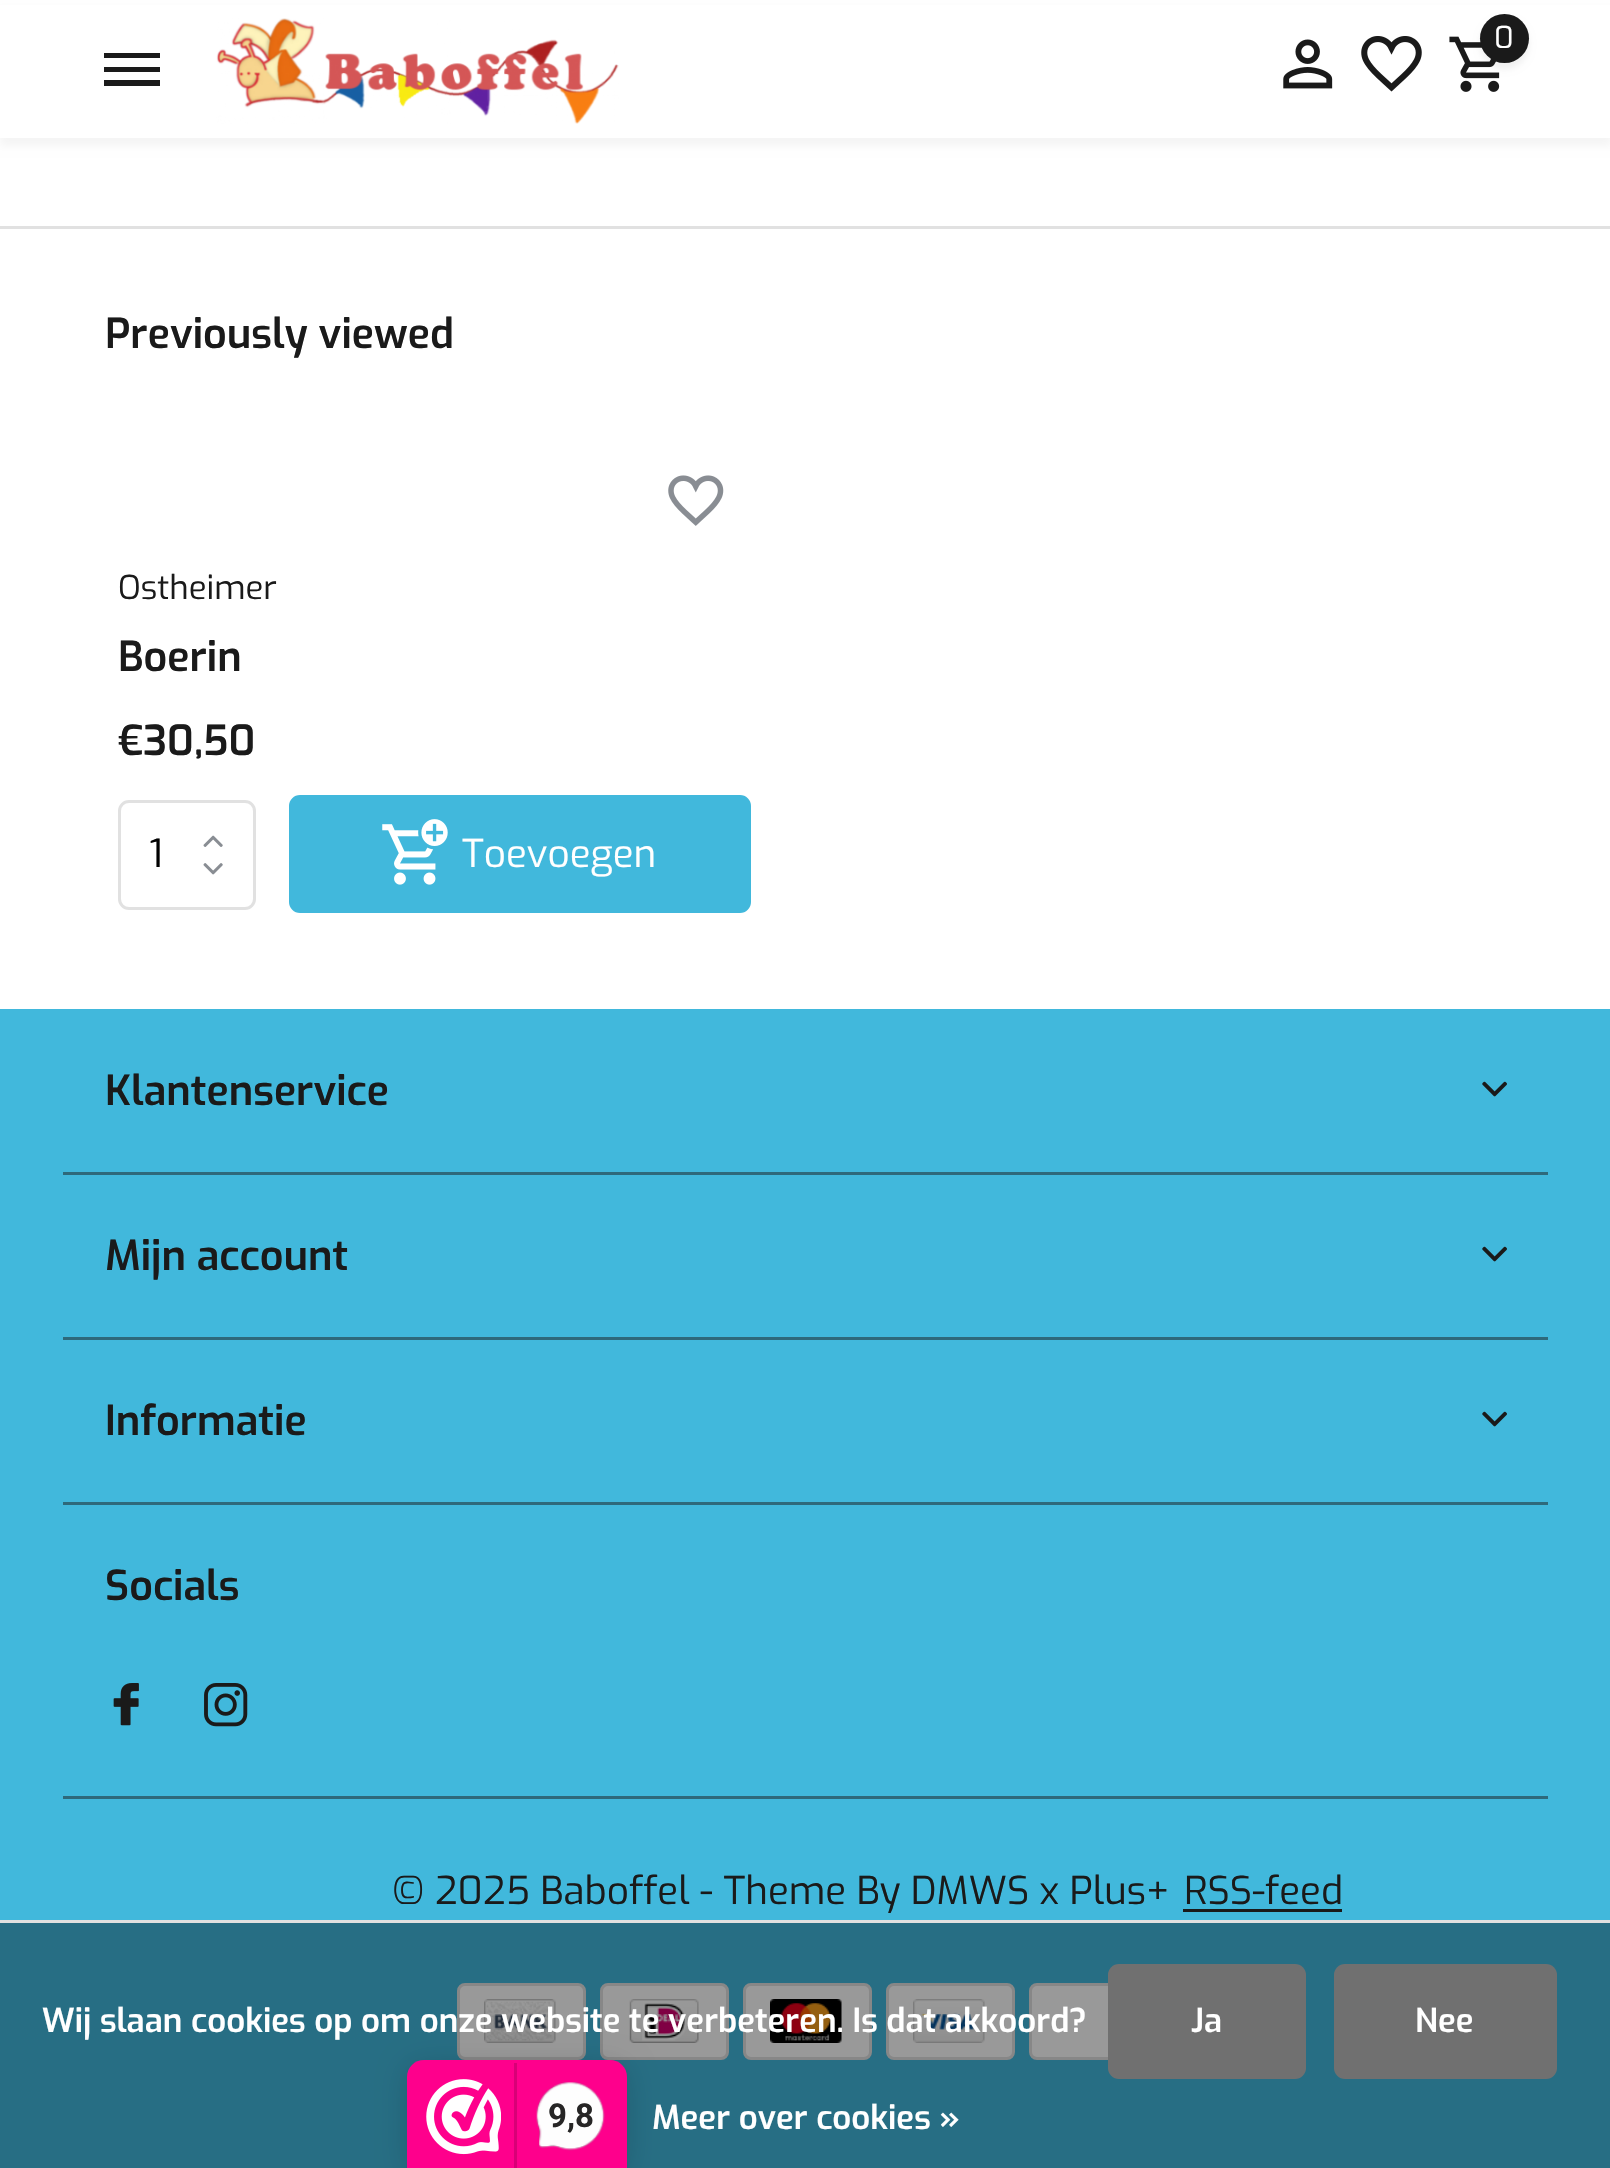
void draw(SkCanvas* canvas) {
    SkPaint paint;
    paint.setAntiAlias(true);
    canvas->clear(0xFFFFFFFF);
    paint.setColor(0x0A000000);
    paint.setMaskFilter(SkMaskFilter::MakeBlur(kNormal_SkBlurStyle, 4));
    canvas->drawRect(SkRect::MakeXYWH(0, 8, 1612, 138), paint);
    paint.setMaskFilter(nullptr);
    paint.setColor(0xFFFFFFFF);
    canvas->drawRect(SkRect::MakeXYWH(0, 5, 1610, 133), paint);
    canvas->drawImageRect(SkImages::DeferredFromEncodedData(SkData::MakeFromFileName("img1.png")), SkRect::MakeXYWH(216, 18, 403, 106), SkSamplingOptions());
    canvas->drawImageRect(SkImages::DeferredFromEncodedData(SkData::MakeFromFileName("img2.png")), SkRect::MakeXYWH(1283, 39, 50, 50), SkSamplingOptions());
    canvas->drawImageRect(SkImages::DeferredFromEncodedData(SkData::MakeFromFileName("img3.png")), SkRect::MakeXYWH(1361, 36, 61, 56), SkSamplingOptions());
    canvas->drawImageRect(SkImages::DeferredFromEncodedData(SkData::MakeFromFileName("img4.png")), SkRect::MakeXYWH(1449, 36, 51, 56), SkSamplingOptions());
    paint.setColor(0x0F000000);
    paint.setMaskFilter(SkMaskFilter::MakeBlur(kNormal_SkBlurStyle, 3));
    canvas->drawRoundRect(SkRect::MakeXYWH(1480, 19, 49, 50), 24.5f, 24.5f, paint);
    paint.setMaskFilter(nullptr);
    paint.setColor(0xFF1A1A1A);
    canvas->drawCircle(1504.5f, 38.5f, 24.5f, paint);
    SkFont font1(fontMgr->matchFamilyStyle("Exo", SkFontStyle::Normal()), 30);
    font1.setSubpixel(true);
    paint.setColor(0xFFFFFFFF);
    canvas->drawString("0", 1494, 48, font1, paint);
    paint.setColor(0xFF1A1A1A);
    canvas->drawPath(SkPathBuilder().moveTo(104, 86).lineTo(160, 86).lineTo(160, 80).lineTo(104, 80).close().moveTo(104, 72).lineTo(160, 72).lineTo(160, 67).lineTo(104, 67).close().moveTo(104, 53).lineTo(104, 58).lineTo(160, 58).lineTo(160, 53).close().detach(), paint);
    paint.setColor(0xFFE1E1E1);
    canvas->drawRect(SkRect::MakeXYWH(0, 226, 1610, 3), paint);
    SkFont font2(fontMgr->matchFamilyStyle("Exo", SkFontStyle(600, SkFontStyle::kNormal_Width, SkFontStyle::kUpright_Slant)), 41.25f);
    font2.setSubpixel(true);
    paint.setColor(0xFF1A1A1A);
    canvas->drawString("Previously viewed", 105, 348, font2, paint);
    canvas->drawImageRect(SkImages::DeferredFromEncodedData(SkData::MakeFromFileName("img5.png")), SkRect::MakeXYWH(668, 475, 56, 51), SkSamplingOptions());
    SkFont font3(fontMgr->matchFamilyStyle("Exo", SkFontStyle::Normal()), 33);
    font3.setSubpixel(true);
    canvas->drawString("Ostheimer", 118, 599, font3, paint);
    canvas->drawString("Boerin", 118, 671, font2, paint);
    canvas->drawString("€30,50", 118, 755, font2, paint);
    paint.setStyle(SkPaint::kStroke_Style);
    paint.setStrokeWidth(3);
    paint.setColor(0xFFE1E1E1);
    canvas->drawRoundRect(SkRect::MakeXYWH(119.5f, 801.5f, 135, 107), 9.5f, 9.5f, paint);
    SkFont font4(fontMgr->matchFamilyStyle("Exo", SkFontStyle::Normal()), 38.5f);
    font4.setSubpixel(true);
    paint.setStyle(SkPaint::kFill_Style);
    paint.setColor(0xFF000000);
    canvas->drawString("1", 149, 867, font4, paint);
    canvas->drawImageRect(SkImages::DeferredFromEncodedData(SkData::MakeFromFileName("img6.png")), SkRect::MakeXYWH(203, 835, 20, 12), SkSamplingOptions());
    canvas->drawImageRect(SkImages::DeferredFromEncodedData(SkData::MakeFromFileName("img7.png")), SkRect::MakeXYWH(203, 863, 20, 12), SkSamplingOptions());
    paint.setColor(0xFF41B8DC);
    canvas->drawRoundRect(SkRect::MakeXYWH(290.5f, 796.5f, 459, 115), 9.5f, 9.5f, paint);
    paint.setStyle(SkPaint::kStroke_Style);
    canvas->drawRoundRect(SkRect::MakeXYWH(290.5f, 796.5f, 459, 115), 9.5f, 9.5f, paint);
    canvas->drawImageRect(SkImages::DeferredFromEncodedData(SkData::MakeFromFileName("img8.png")), SkRect::MakeXYWH(382, 819, 66, 66), SkSamplingOptions());
    paint.setStyle(SkPaint::kFill_Style);
    paint.setColor(0xFFFFFFFF);
    canvas->drawString("Toevoegen", 462, 867, font4, paint);
    paint.setColor(0xFF41B8DC);
    canvas->drawRect(SkRect::MakeXYWH(0, 1009, 1610, 911), paint);
    paint.setColor(0xFF276E84);
    canvas->drawRect(SkRect::MakeXYWH(0, 1923, 1610, 245), paint);
    paint.setColor(0xFF1A1A1A);
    canvas->drawString("Klantenservice", 105, 1105, font2, paint);
    canvas->drawImageRect(SkImages::DeferredFromEncodedData(SkData::MakeFromFileName("img9.png")), SkRect::MakeXYWH(1482, 1081, 25, 16), SkSamplingOptions());
    paint.setColor(0xFF2E697B);
    canvas->drawRect(SkRect::MakeXYWH(63, 1172, 1485, 3), paint);
    paint.setColor(0xFF1A1A1A);
    canvas->drawString("Mijn account", 105, 1270, font2, paint);
    canvas->drawImageRect(SkImages::DeferredFromEncodedData(SkData::MakeFromFileName("img9.png")), SkRect::MakeXYWH(1482, 1246, 25, 16), SkSamplingOptions());
    paint.setColor(0xFF2E697B);
    canvas->drawRect(SkRect::MakeXYWH(63, 1337, 1485, 3), paint);
    paint.setColor(0xFF1A1A1A);
    canvas->drawString("Informatie", 105, 1435, font2, paint);
    canvas->drawImageRect(SkImages::DeferredFromEncodedData(SkData::MakeFromFileName("img9.png")), SkRect::MakeXYWH(1482, 1411, 25, 16), SkSamplingOptions());
    paint.setColor(0xFF2E697B);
    canvas->drawRect(SkRect::MakeXYWH(63, 1502, 1485, 3), paint);
    paint.setColor(0xFF1A1A1A);
    canvas->drawString("Socials", 105, 1600, font2, paint);
    canvas->drawImageRect(SkImages::DeferredFromEncodedData(SkData::MakeFromFileName("img10.png")), SkRect::MakeXYWH(113, 1683, 26, 43), SkSamplingOptions());
    canvas->drawImageRect(SkImages::DeferredFromEncodedData(SkData::MakeFromFileName("img11.png")), SkRect::MakeXYWH(204, 1683, 44, 44), SkSamplingOptions());
    paint.setColor(0xFF2E697B);
    canvas->drawRect(SkRect::MakeXYWH(63, 1796, 1485, 3), paint);
    paint.setColor(0xFF1A1A1A);
    canvas->drawString("© 2025 Baboffel - Theme By DMWS x Plus+", 392, 1904, font4, paint);
    canvas->drawString("RSS-feed", 1184, 1904, font4, paint);
    canvas->drawRect(SkRect::MakeXYWH(1183, 1909, 159, 3), paint);
    paint.setColor(0xFF999999);
    canvas->drawRoundRect(SkRect::MakeXYWH(458.5f, 1984.5f, 126, 74), 6.5f, 6.5f, paint);
    paint.setStyle(SkPaint::kStroke_Style);
    paint.setColor(0xFF878787);
    canvas->drawRoundRect(SkRect::MakeXYWH(458.5f, 1984.5f, 126, 74), 6.5f, 6.5f, paint);
    canvas->drawImageRect(SkImages::DeferredFromEncodedData(SkData::MakeFromFileName("img12.png")), SkRect::MakeXYWH(484, 1999, 72, 44), SkSamplingOptions());
    paint.setStyle(SkPaint::kFill_Style);
    paint.setColor(0xFF999999);
    canvas->drawRoundRect(SkRect::MakeXYWH(601.5f, 1984.5f, 126, 74), 6.5f, 6.5f, paint);
    paint.setStyle(SkPaint::kStroke_Style);
    paint.setColor(0xFF878787);
    canvas->drawRoundRect(SkRect::MakeXYWH(601.5f, 1984.5f, 126, 74), 6.5f, 6.5f, paint);
    canvas->drawImageRect(SkImages::DeferredFromEncodedData(SkData::MakeFromFileName("img13.png")), SkRect::MakeXYWH(629, 1999, 70, 44), SkSamplingOptions());
    paint.setStyle(SkPaint::kFill_Style);
    paint.setColor(0xFF999999);
    canvas->drawRoundRect(SkRect::MakeXYWH(744.5f, 1984.5f, 126, 74), 6.5f, 6.5f, paint);
    paint.setStyle(SkPaint::kStroke_Style);
    paint.setColor(0xFF878787);
    canvas->drawRoundRect(SkRect::MakeXYWH(744.5f, 1984.5f, 126, 74), 6.5f, 6.5f, paint);
    canvas->drawImageRect(SkImages::DeferredFromEncodedData(SkData::MakeFromFileName("img14.png")), SkRect::MakeXYWH(770, 1999, 72, 44), SkSamplingOptions());
    paint.setStyle(SkPaint::kFill_Style);
    paint.setColor(0xFF999999);
    canvas->drawRoundRect(SkRect::MakeXYWH(887.5f, 1984.5f, 126, 74), 6.5f, 6.5f, paint);
    paint.setStyle(SkPaint::kStroke_Style);
    paint.setColor(0xFF878787);
    canvas->drawRoundRect(SkRect::MakeXYWH(887.5f, 1984.5f, 126, 74), 6.5f, 6.5f, paint);
    canvas->drawImageRect(SkImages::DeferredFromEncodedData(SkData::MakeFromFileName("img15.png")), SkRect::MakeXYWH(913, 1999, 72, 44), SkSamplingOptions());
    paint.setStyle(SkPaint::kFill_Style);
    paint.setColor(0xFF999999);
    canvas->drawRoundRect(SkRect::MakeXYWH(1030.5f, 1984.5f, 126, 74), 6.5f, 6.5f, paint);
    paint.setStyle(SkPaint::kStroke_Style);
    paint.setColor(0xFF878787);
    canvas->drawRoundRect(SkRect::MakeXYWH(1030.5f, 1984.5f, 126, 74), 6.5f, 6.5f, paint);
    paint.setStyle(SkPaint::kFill_Style);
    paint.setColor(0xFFE1E1E1);
    canvas->drawRect(SkRect::MakeXYWH(0, 1920, 1610, 3), paint);
    SkFont font5(fontMgr->matchFamilyStyle("Exo", SkFontStyle(600, SkFontStyle::kNormal_Width, SkFontStyle::kUpright_Slant)), 33);
    font5.setSubpixel(true);
    paint.setColor(0xFFFFFFFF);
    canvas->drawString("Wij slaan cookies op om onze website te verbeteren. Is dat akkoord?", 42, 2032, font5, paint);
    paint.setColor(0xFF707070);
    canvas->drawRoundRect(SkRect::MakeXYWH(1108, 1964, 198, 115), 11, 11, paint);
    paint.setColor(0xFFFFFFFF);
    canvas->drawString("Ja", 1191, 2032, font5, paint);
    paint.setColor(0xFF707070);
    canvas->drawRoundRect(SkRect::MakeXYWH(1334, 1964, 223, 115), 11, 11, paint);
    paint.setColor(0xFFFFFFFF);
    canvas->drawString("Nee", 1415, 2032, font5, paint);
    canvas->drawString("Meer over cookies »", 652, 2129, font5, paint);
    paint.setColor(0x26000000);
    paint.setMaskFilter(SkMaskFilter::MakeBlur(kNormal_SkBlurStyle, 14));
    canvas->drawRoundRect(SkRect::MakeXYWH(407, 2065, 220, 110), 17, 17, paint);
    paint.setMaskFilter(nullptr);
    paint.setColor(0xFFFE008C);
    canvas->drawPath(SkPathBuilder().moveTo(424, 2060).lineTo(610, 2060).cubicTo(619.5f, 2060, 627, 2067.5f, 627, 2077).lineTo(627, 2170).lineTo(407, 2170).lineTo(407, 2077).cubicTo(407, 2067.5f, 414.5f, 2060, 424, 2060).close().detach(), paint);
    canvas->drawImageRect(SkImages::DeferredFromEncodedData(SkData::MakeFromFileName("img16.png")), SkRect::MakeXYWH(426, 2079, 75, 76), SkSamplingOptions());
    paint.setColor(0xFFD80077);
    canvas->drawRect(SkRect::MakeXYWH(514, 2063, 3, 105), paint);
    canvas->drawImageRect(SkImages::DeferredFromEncodedData(SkData::MakeFromFileName("img17.png")), SkRect::MakeXYWH(536, 2082, 69, 69), SkSamplingOptions());
    SkFont font6(fontMgr->matchFamilyStyle("Roboto", SkFontStyle::Bold()), 33);
    font6.setSubpixel(true);
    paint.setColor(0xFF272626);
    canvas->drawString("9,8", 548, 2127, font6, paint);
}
